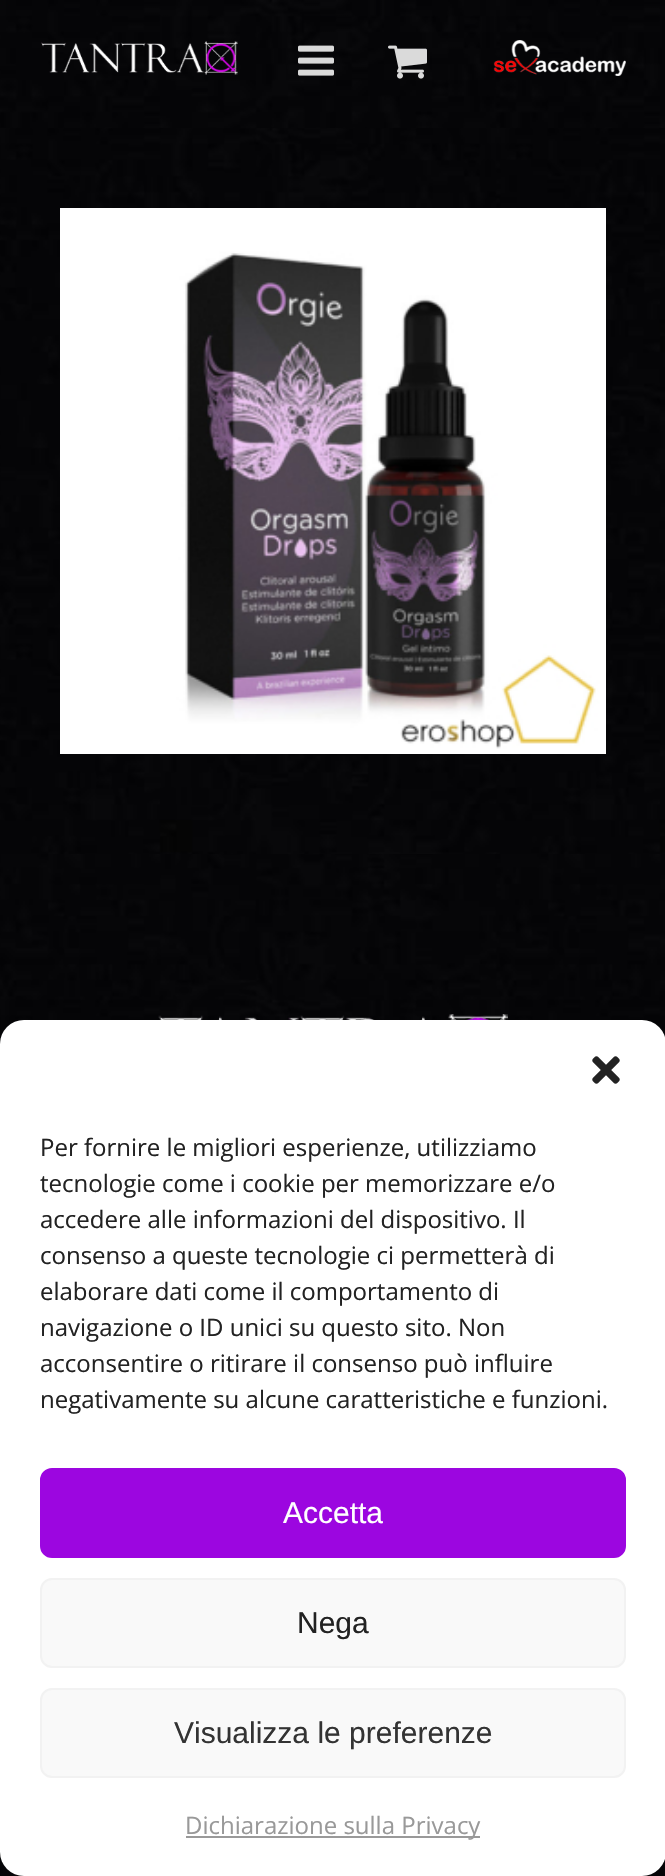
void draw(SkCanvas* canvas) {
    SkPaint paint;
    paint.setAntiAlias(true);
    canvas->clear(0xFFFFFFFF);
    canvas->drawImageRect(SkImages::DeferredFromEncodedData(SkData::MakeFromFileName("img1.png")), SkRect::MakeXYWH(0, 854, 665, 1022), SkSamplingOptions());
    canvas->drawImageRect(SkImages::DeferredFromEncodedData(SkData::MakeFromFileName("img2.png")), SkRect::MakeXYWH(0, 0, 665, 128), SkSamplingOptions());
    canvas->drawImageRect(SkImages::DeferredFromEncodedData(SkData::MakeFromFileName("img3.png")), SkRect::MakeXYWH(41, 40, 585, 36), SkSamplingOptions());
    canvas->drawImageRect(SkImages::DeferredFromEncodedData(SkData::MakeFromFileName("img4.png")), SkRect::MakeXYWH(298, 45, 36, 31), SkSamplingOptions());
    canvas->drawImageRect(SkImages::DeferredFromEncodedData(SkData::MakeFromFileName("img5.png")), SkRect::MakeXYWH(388, 45, 39, 34), SkSamplingOptions());
    canvas->drawImageRect(SkImages::DeferredFromEncodedData(SkData::MakeFromFileName("img6.png")), SkRect::MakeXYWH(0, 128, 665, 726), SkSamplingOptions());
    canvas->drawImageRect(SkImages::DeferredFromEncodedData(SkData::MakeFromFileName("img7.png")), SkRect::MakeXYWH(60, 208, 546, 546), SkSamplingOptions());
    canvas->drawImageRect(SkImages::DeferredFromEncodedData(SkData::MakeFromFileName("img8.png")), SkRect::MakeXYWH(158, 1014, 350, 6), SkSamplingOptions());
    paint.setColor(0xFFFFFFFF);
    canvas->drawRoundRect(SkRect::MakeXYWH(0, 1020, 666, 856), 24, 24, paint);
    canvas->drawImageRect(SkImages::DeferredFromEncodedData(SkData::MakeFromFileName("img9.png")), SkRect::MakeXYWH(592, 1056, 28, 28), SkSamplingOptions());
    SkFont font1(fontMgr->matchFamilyStyle("Open Sans", SkFontStyle::Normal()), 24);
    font1.setSubpixel(true);
    paint.setColor(0xFF222222);
    canvas->drawString("Per fornire le migliori esperienze, utilizziamo", 40, 1156, font1, paint);
    canvas->drawString("tecnologie come i cookie per memorizzare e/o", 40, 1192, font1, paint);
    canvas->drawString("accedere alle informazioni del dispositivo. Il", 40, 1228, font1, paint);
    canvas->drawString("consenso a queste tecnologie ci permetterà di", 40, 1264, font1, paint);
    canvas->drawString("elaborare dati come il comportamento di", 40, 1300, font1, paint);
    canvas->drawString("navigazione o ID unici su questo sito. Non", 40, 1336, font1, paint);
    canvas->drawString("acconsentire o ritirare il consenso può influire", 40, 1372, font1, paint);
    canvas->drawString("negativamente su alcune caratteristiche e funzioni.", 40, 1408, font1, paint);
    paint.setColor(0xFF9C06E0);
    canvas->drawRoundRect(SkRect::MakeXYWH(41, 1469, 584, 88), 11, 11, paint);
    paint.setStyle(SkPaint::kStroke_Style);
    paint.setStrokeWidth(2);
    canvas->drawRoundRect(SkRect::MakeXYWH(41, 1469, 584, 88), 11, 11, paint);
    SkFont font2(fontMgr->matchFamilyStyle("Liberation Sans", SkFontStyle::Normal()), 30);
    font2.setSubpixel(true);
    paint.setStyle(SkPaint::kFill_Style);
    paint.setColor(0xFFFFFFFF);
    canvas->drawString("Accetta", 283, 1523, font2, paint);
    paint.setColor(0xFFF9F9F9);
    canvas->drawRoundRect(SkRect::MakeXYWH(41, 1579, 584, 88), 11, 11, paint);
    paint.setStyle(SkPaint::kStroke_Style);
    paint.setColor(0xFFF2F2F2);
    canvas->drawRoundRect(SkRect::MakeXYWH(41, 1579, 584, 88), 11, 11, paint);
    paint.setStyle(SkPaint::kFill_Style);
    paint.setColor(0xFF222222);
    canvas->drawString("Nega", 297, 1633, font2, paint);
    paint.setColor(0xFFF9F9F9);
    canvas->drawRoundRect(SkRect::MakeXYWH(41, 1689, 584, 88), 11, 11, paint);
    paint.setStyle(SkPaint::kStroke_Style);
    paint.setColor(0xFFF2F2F2);
    canvas->drawRoundRect(SkRect::MakeXYWH(41, 1689, 584, 88), 11, 11, paint);
    paint.setStyle(SkPaint::kFill_Style);
    paint.setColor(0xFF333333);
    canvas->drawString("Visualizza le preferenze", 174, 1743, font2, paint);
    paint.setColor(0xFF999999);
    canvas->drawRect(SkRect::MakeXYWH(186, 1836, 294, 2), paint);
    canvas->drawString("Dichiarazione sulla Privacy", 185, 1834, font1, paint);
}
